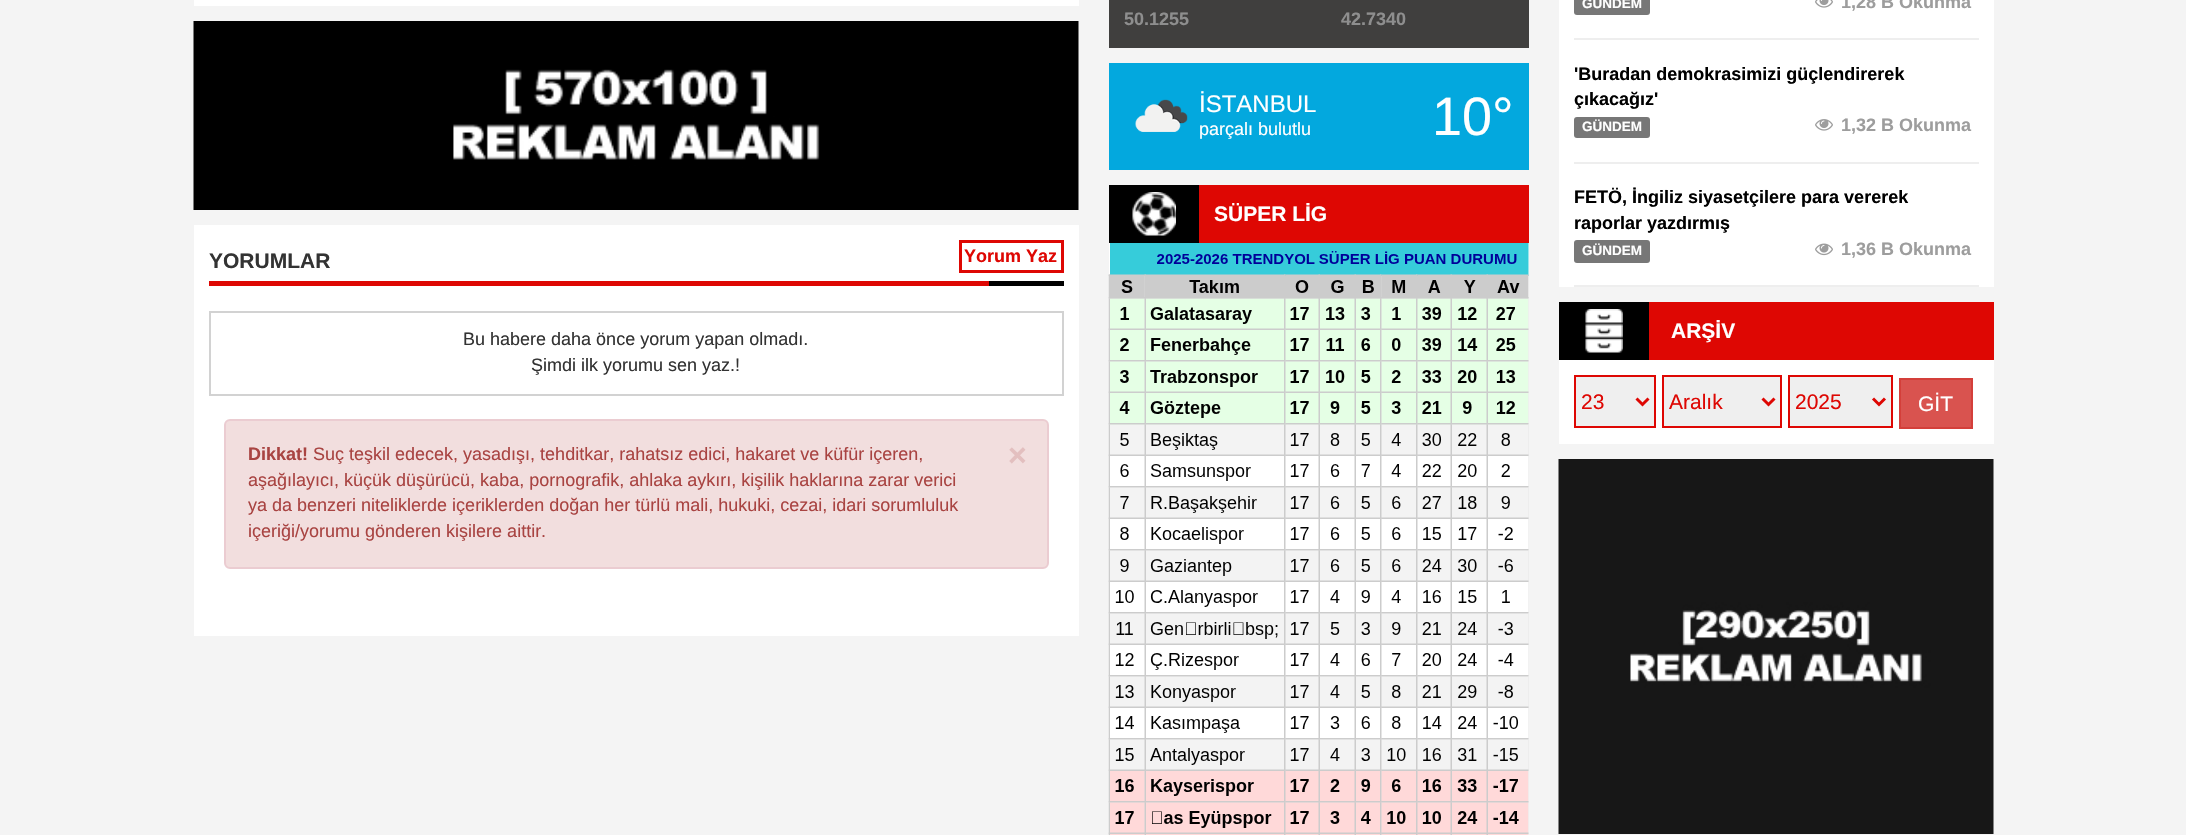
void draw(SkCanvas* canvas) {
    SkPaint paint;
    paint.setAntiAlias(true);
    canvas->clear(0xFFF4F4F4);
    paint.setColor(0xFF403F3E);
    canvas->drawRect(SkRect::MakeXYWH(1109, 0, 420, 48), paint);
    SkFont font1(fontMgr->matchFamilyStyle("Liberation Sans", SkFontStyle::Bold()), 18);
    font1.setSubpixel(true);
    paint.setColor(0xFF8E8E8E);
    canvas->drawString("50.1255", 1124, 25, font1, paint);
    canvas->drawString("42.7340", 1341, 25, font1, paint);
    paint.setColor(0xFF03A8DE);
    canvas->drawRect(SkRect::MakeXYWH(1109, 63, 420, 107), paint);
    canvas->drawImageRect(SkImages::DeferredFromEncodedData(SkData::MakeFromFileName("img1.png")), SkRect::MakeXYWH(1135, 99, 53, 33), SkSamplingOptions());
    SkFont font2(fontMgr->matchFamilyStyle("Liberation Sans", SkFontStyle::Normal()), 24);
    font2.setSubpixel(true);
    paint.setColor(0xFFFFFFFF);
    canvas->drawString("İSTANBUL", 1199, 112, font2, paint);
    SkFont font3(fontMgr->matchFamilyStyle("Liberation Sans", SkFontStyle::Normal()), 18);
    font3.setSubpixel(true);
    canvas->drawString("parçalı bulutlu", 1199, 135, font3, paint);
    SkFont font4(fontMgr->matchFamilyStyle("Liberation Sans", SkFontStyle::Normal()), 54);
    font4.setSubpixel(true);
    canvas->drawString("10°", 1432, 135, font4, paint);
    canvas->drawRect(SkRect::MakeXYWH(1109, 243, 420, 592), paint);
    paint.setColor(0xFFDE0703);
    canvas->drawRect(SkRect::MakeXYWH(1199, 185, 330, 58), paint);
    paint.setColor(0xFF000000);
    canvas->drawRect(SkRect::MakeXYWH(1109, 185, 90, 58), paint);
    canvas->drawImageRect(SkImages::DeferredFromEncodedData(SkData::MakeFromFileName("img2.png")), SkRect::MakeXYWH(1132, 192, 44, 44), SkSamplingOptions());
    SkFont font5(fontMgr->matchFamilyStyle("Liberation Sans", SkFontStyle::Bold()), 21);
    font5.setSubpixel(true);
    paint.setColor(0xFFFFFFFF);
    canvas->drawString("SÜPER LİG", 1214, 221, font5, paint);
    canvas->drawImageRect(SkImages::DeferredFromEncodedData(SkData::MakeFromFileName("img3.png")), SkRect::MakeXYWH(1108, 243, 421, 592), SkSamplingOptions());
    canvas->drawRect(SkRect::MakeXYWH(1559, 0, 435, 287), paint);
    paint.setColor(0xFF777777);
    canvas->drawRoundRect(SkRect::MakeXYWH(1574, -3, 76, 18), 3, 3, paint);
    SkFont font6(fontMgr->matchFamilyStyle("Liberation Sans", SkFontStyle::Bold()), 13.5f);
    font6.setSubpixel(true);
    paint.setColor(0xFFFFFFFF);
    canvas->drawString("GÜNDEM", 1582, 8, font6, paint);
    canvas->drawImageRect(SkImages::DeferredFromEncodedData(SkData::MakeFromFileName("img4.png")), SkRect::MakeXYWH(1815, 0, 18, 8), SkSamplingOptions());
    paint.setColor(0xFF9D9D9D);
    canvas->drawString("1,28 B Okunma", 1841, 8, font1, paint);
    paint.setColor(0xFFEEEEEE);
    canvas->drawRect(SkRect::MakeXYWH(1574, 38, 405, 2), paint);
    paint.setColor(0xFF000000);
    canvas->drawString("'Buradan demokrasimizi güçlendirerek", 1574, 80, font1, paint);
    canvas->drawString("çıkacağız'", 1574, 105, font1, paint);
    paint.setColor(0xFF777777);
    canvas->drawRoundRect(SkRect::MakeXYWH(1574, 117, 76, 21), 3, 3, paint);
    paint.setColor(0xFFFFFFFF);
    canvas->drawString("GÜNDEM", 1582, 131, font6, paint);
    canvas->drawImageRect(SkImages::DeferredFromEncodedData(SkData::MakeFromFileName("img5.png")), SkRect::MakeXYWH(1815, 119, 18, 12), SkSamplingOptions());
    paint.setColor(0xFF9D9D9D);
    canvas->drawString("1,32 B Okunma", 1841, 131, font1, paint);
    paint.setColor(0xFFEEEEEE);
    canvas->drawRect(SkRect::MakeXYWH(1574, 162, 405, 2), paint);
    paint.setColor(0xFF000000);
    canvas->drawString("FETÖ, İngiliz siyasetçilere para vererek", 1574, 203, font1, paint);
    canvas->drawString("raporlar yazdırmış", 1574, 229, font1, paint);
    paint.setColor(0xFF777777);
    canvas->drawRoundRect(SkRect::MakeXYWH(1574, 240, 76, 23), 3, 3, paint);
    paint.setColor(0xFFFFFFFF);
    canvas->drawString("GÜNDEM", 1582, 255, font6, paint);
    canvas->drawImageRect(SkImages::DeferredFromEncodedData(SkData::MakeFromFileName("img6.png")), SkRect::MakeXYWH(1815, 243, 18, 13), SkSamplingOptions());
    paint.setColor(0xFF9D9D9D);
    canvas->drawString("1,36 B Okunma", 1841, 255, font1, paint);
    paint.setColor(0xFFEEEEEE);
    canvas->drawRect(SkRect::MakeXYWH(1574, 285, 405, 2), paint);
    paint.setColor(0xFFFFFFFF);
    canvas->drawRect(SkRect::MakeXYWH(1559, 360, 435, 84), paint);
    paint.setColor(0xFFDE0703);
    canvas->drawRect(SkRect::MakeXYWH(1649, 302, 345, 58), paint);
    paint.setColor(0xFF000000);
    canvas->drawRect(SkRect::MakeXYWH(1559, 302, 90, 58), paint);
    canvas->drawImageRect(SkImages::DeferredFromEncodedData(SkData::MakeFromFileName("img7.png")), SkRect::MakeXYWH(1585, 309, 38, 44), SkSamplingOptions());
    paint.setColor(0xFFFFFFFF);
    canvas->drawString("ARŞİV", 1671, 338, font5, paint);
    paint.setColor(0xFFEFEFEF);
    canvas->drawRect(SkRect::MakeXYWH(1575, 376, 80, 51), paint);
    paint.setStyle(SkPaint::kStroke_Style);
    paint.setStrokeWidth(2);
    paint.setColor(0xFFDE0703);
    canvas->drawRect(SkRect::MakeXYWH(1575, 376, 80, 51), paint);
    paint.setStrokeWidth(3);
    canvas->drawPath(SkPathBuilder().moveTo(1636.5f, 398.5f).lineTo(1642.5f, 404.5f).lineTo(1648.5f, 398.5f).detach(), paint);
    SkFont font7(fontMgr->matchFamilyStyle("Liberation Sans", SkFontStyle::Normal()), 21);
    font7.setSubpixel(true);
    paint.setStyle(SkPaint::kFill_Style);
    canvas->drawString("23", 1581, 409, font7, paint);
    paint.setColor(0xFFEFEFEF);
    canvas->drawRect(SkRect::MakeXYWH(1663, 376, 118, 51), paint);
    paint.setStyle(SkPaint::kStroke_Style);
    paint.setStrokeWidth(2);
    paint.setColor(0xFFDE0703);
    canvas->drawRect(SkRect::MakeXYWH(1663, 376, 118, 51), paint);
    paint.setStrokeWidth(3);
    canvas->drawPath(SkPathBuilder().moveTo(1762.5f, 398.5f).lineTo(1768.5f, 404.5f).lineTo(1774.5f, 398.5f).detach(), paint);
    paint.setStyle(SkPaint::kFill_Style);
    canvas->drawString("Aralık", 1669, 409, font7, paint);
    paint.setColor(0xFFEFEFEF);
    canvas->drawRect(SkRect::MakeXYWH(1789, 376, 103, 51), paint);
    paint.setStyle(SkPaint::kStroke_Style);
    paint.setStrokeWidth(2);
    paint.setColor(0xFFDE0703);
    canvas->drawRect(SkRect::MakeXYWH(1789, 376, 103, 51), paint);
    paint.setStrokeWidth(3);
    canvas->drawPath(SkPathBuilder().moveTo(1873, 398.5f).lineTo(1879, 404.5f).lineTo(1885, 398.5f).detach(), paint);
    paint.setStyle(SkPaint::kFill_Style);
    canvas->drawString("2025", 1795, 409, font7, paint);
    paint.setColor(0xFFD9534F);
    canvas->drawRect(SkRect::MakeXYWH(1900, 379, 72, 49), paint);
    paint.setStyle(SkPaint::kStroke_Style);
    paint.setStrokeWidth(2);
    paint.setColor(0xFFD43F3A);
    canvas->drawRect(SkRect::MakeXYWH(1900, 379, 72, 49), paint);
    paint.setStyle(SkPaint::kFill_Style);
    paint.setColor(0xFFFFFFFF);
    canvas->drawString("GİT", 1918, 411, font7, paint);
    canvas->drawImageRect(SkImages::DeferredFromEncodedData(SkData::MakeFromFileName("img8.png")), SkRect::MakeXYWH(1558, 459, 436, 375), SkSamplingOptions());
    canvas->drawRect(SkRect::MakeXYWH(194, 0, 885, 6), paint);
    canvas->drawImageRect(SkImages::DeferredFromEncodedData(SkData::MakeFromFileName("img9.png")), SkRect::MakeXYWH(193, 21, 886, 189), SkSamplingOptions());
    canvas->drawRect(SkRect::MakeXYWH(194, 225, 885, 411), paint);
    paint.setColor(0xFF333333);
    canvas->drawString("YORUMLAR", 209, 268, font5, paint);
    paint.setStyle(SkPaint::kStroke_Style);
    paint.setStrokeWidth(3);
    paint.setColor(0xFFDE0703);
    canvas->drawRect(SkRect::MakeXYWH(960.5f, 241.5f, 102, 30), paint);
    paint.setStyle(SkPaint::kFill_Style);
    canvas->drawString("Yorum Yaz", 964, 262, font1, paint);
    canvas->drawRect(SkRect::MakeXYWH(209, 281, 780, 5), paint);
    paint.setColor(0xFF000000);
    canvas->drawRect(SkRect::MakeXYWH(989, 281, 75, 5), paint);
    paint.setStyle(SkPaint::kStroke_Style);
    paint.setStrokeWidth(2);
    paint.setColor(0xFFD2D2D2);
    canvas->drawRect(SkRect::MakeXYWH(210, 312, 853, 83), paint);
    paint.setStyle(SkPaint::kFill_Style);
    paint.setColor(0xFF333333);
    canvas->drawString("Bu habere daha önce yorum yapan olmadı.", 463, 345, font3, paint);
    canvas->drawString("Şimdi ilk yorumu sen yaz.!", 531, 371, font3, paint);
    paint.setColor(0xFFF2DEDE);
    canvas->drawRoundRect(SkRect::MakeXYWH(225, 420, 823, 148), 5, 5, paint);
    paint.setStyle(SkPaint::kStroke_Style);
    paint.setColor(0xFFEBCCD1);
    canvas->drawRoundRect(SkRect::MakeXYWH(225, 420, 823, 148), 5, 5, paint);
    paint.setStyle(SkPaint::kFill_Style);
    paint.setColor(0xFFA94442);
    canvas->drawString("Dikkat!", 248, 460, font1, paint);
    canvas->drawString("Suç teşkil edecek, yasadışı, tehditkar, rahatsız edici, hakaret ve küfür içeren,", 313, 460, font3, paint);
    SkFont font8(fontMgr->matchFamilyStyle("Liberation Sans", SkFontStyle::Bold()), 32);
    font8.setSubpixel(true);
    paint.setColor(0xFFE3BFBF);
    canvas->drawString("×", 1008, 466, font8, paint);
    paint.setColor(0xFFA94442);
    canvas->drawString("aşağılayıcı, küçük düşürücü, kaba, pornografik, ahlaka aykırı, kişilik haklarına zarar verici", 248, 486, font3, paint);
    canvas->drawString("ya da benzeri niteliklerde içeriklerden doğan her türlü mali, hukuki, cezai, idari sorumluluk", 248, 511, font3, paint);
    canvas->drawString("içeriği/yorumu gönderen kişilere aittir.", 248, 537, font3, paint);
}
